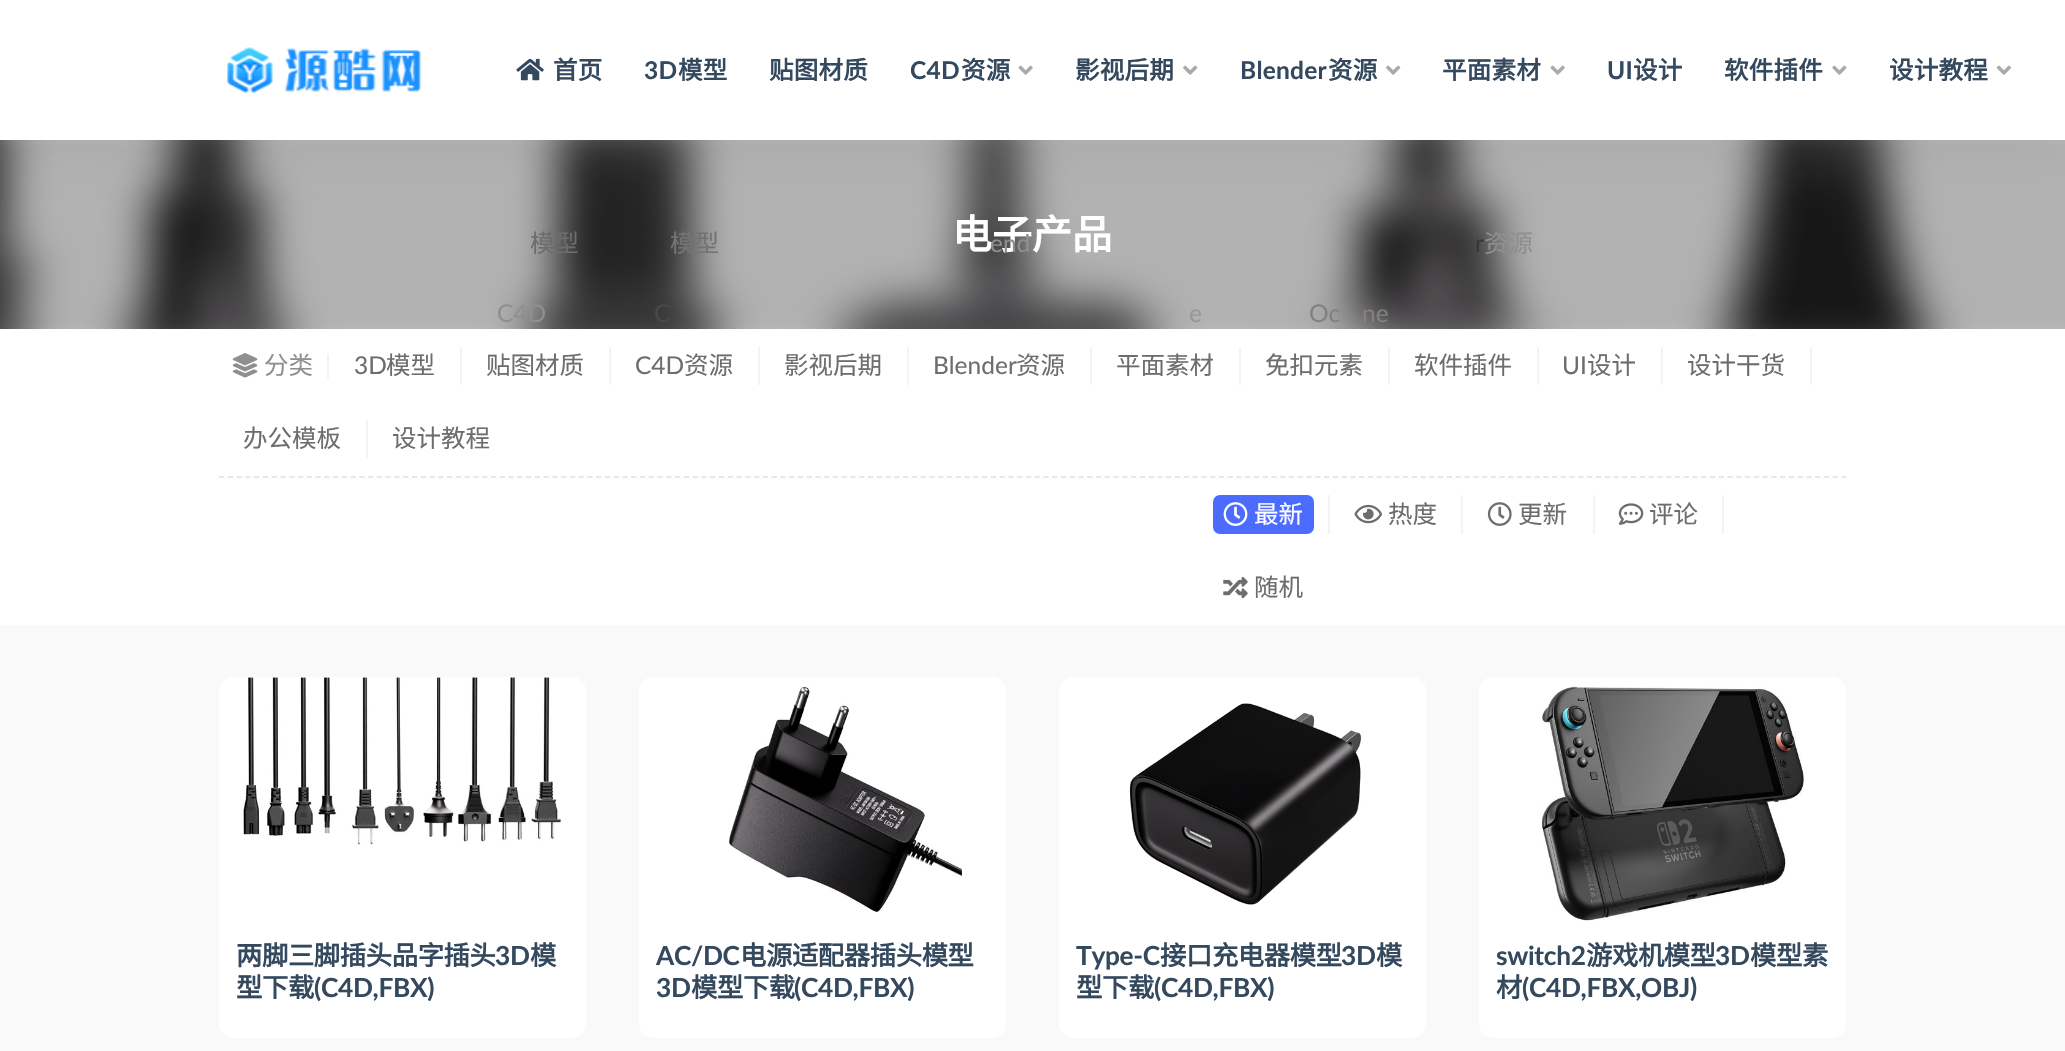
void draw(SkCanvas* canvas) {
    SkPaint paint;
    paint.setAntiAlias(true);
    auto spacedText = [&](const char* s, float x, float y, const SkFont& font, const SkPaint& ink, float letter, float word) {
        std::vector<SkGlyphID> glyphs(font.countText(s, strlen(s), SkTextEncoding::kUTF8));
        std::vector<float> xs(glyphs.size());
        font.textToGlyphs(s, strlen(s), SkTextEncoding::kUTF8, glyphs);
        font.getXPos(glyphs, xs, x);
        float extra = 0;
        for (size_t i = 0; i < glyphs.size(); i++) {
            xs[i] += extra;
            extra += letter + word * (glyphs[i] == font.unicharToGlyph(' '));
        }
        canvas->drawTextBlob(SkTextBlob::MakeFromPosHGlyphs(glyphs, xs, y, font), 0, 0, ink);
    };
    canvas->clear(0xFFF9F9F9);
    canvas->drawImageRect(SkImages::DeferredFromEncodedData(SkData::MakeFromFileName("img7.png")), SkRect::MakeXYWH(0, 140, 2065, 189), SkSamplingOptions());
    paint.setColor(0x12000000);
    paint.setMaskFilter(SkMaskFilter::MakeBlur(kNormal_SkBlurStyle, 26));
    canvas->drawRect(SkRect::MakeXYWH(0, 0, 2065, 140), paint);
    paint.setMaskFilter(nullptr);
    paint.setColor(0x4D000000);
    paint.setMaskFilter(SkMaskFilter::MakeBlur(kNormal_SkBlurStyle, 17.5f));
    canvas->drawRect(SkRect::MakeXYWH(-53, 112, 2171, 245), paint);
    paint.setMaskFilter(nullptr);
    paint.setColor(0xFFFFFFFF);
    canvas->drawRect(SkRect::MakeXYWH(0, 0, 2065, 140), paint);
    canvas->drawImageRect(SkImages::DeferredFromEncodedData(SkData::MakeFromFileName("img1.png")), SkRect::MakeXYWH(227, 47, 195, 46), SkSamplingOptions());
    canvas->drawImageRect(SkImages::DeferredFromEncodedData(SkData::MakeFromFileName("img2.png")), SkRect::MakeXYWH(516, 58, 28, 23), SkSamplingOptions());
    SkFont font1(fontMgr->matchFamilyStyle("Noto Sans CJK SC", SkFontStyle::Bold()), 24.5f);
    font1.setSubpixel(true);
    paint.setColor(0xFF34495E);
    spacedText("首页", 553, 79, font1, paint, 0.25f, 0);
    SkFont font2(fontMgr->matchFamilyStyle("Lato", SkFontStyle::Bold()), 24.5f);
    font2.setSubpixel(true);
    spacedText("3D", 644, 79, font2, paint, 0.25f, 0);
    spacedText("模型", 678, 79, font1, paint, 0.25f, 0);
    spacedText("贴图材质", 769, 79, font1, paint, 0.25f, 0);
    spacedText("C4D", 910, 79, font2, paint, 0.25f, 0);
    spacedText("资源", 961, 79, font1, paint, 0.25f, 0);
    canvas->drawImageRect(SkImages::DeferredFromEncodedData(SkData::MakeFromFileName("img3.png")), SkRect::MakeXYWH(1018, 65, 15, 10), SkSamplingOptions());
    spacedText("影视后期", 1075, 79, font1, paint, 0.25f, 0);
    canvas->drawImageRect(SkImages::DeferredFromEncodedData(SkData::MakeFromFileName("img4.png")), SkRect::MakeXYWH(1183, 65, 15, 10), SkSamplingOptions());
    spacedText("Blender", 1240, 79, font2, paint, 0.25f, 0);
    spacedText("资源", 1328, 79, font1, paint, 0.25f, 0);
    canvas->drawImageRect(SkImages::DeferredFromEncodedData(SkData::MakeFromFileName("img4.png")), SkRect::MakeXYWH(1386, 65, 15, 10), SkSamplingOptions());
    spacedText("平面素材", 1442, 79, font1, paint, 0.25f, 0);
    canvas->drawImageRect(SkImages::DeferredFromEncodedData(SkData::MakeFromFileName("img3.png")), SkRect::MakeXYWH(1550, 65, 15, 10), SkSamplingOptions());
    spacedText("UI", 1607, 79, font2, paint, 0.25f, 0);
    spacedText("设计", 1633, 79, font1, paint, 0.25f, 0);
    spacedText("软件插件", 1724, 79, font1, paint, 0.25f, 0);
    canvas->drawImageRect(SkImages::DeferredFromEncodedData(SkData::MakeFromFileName("img5.png")), SkRect::MakeXYWH(1832, 65, 15, 10), SkSamplingOptions());
    spacedText("设计教程", 1889, 79, font1, paint, 0.25f, 0);
    canvas->drawImageRect(SkImages::DeferredFromEncodedData(SkData::MakeFromFileName("img6.png")), SkRect::MakeXYWH(1996, 65, 15, 10), SkSamplingOptions());
    SkFont font3(fontMgr->matchFamilyStyle("Noto Sans CJK SC", SkFontStyle::Bold()), 40);
    font3.setSubpixel(true);
    paint.setColor(0xFFFFFFFF);
    canvas->drawString("电子产品", 952, 249, font3, paint);
    canvas->drawRect(SkRect::MakeXYWH(0, 329, 2065, 296), paint);
    paint.setStyle(SkPaint::kStroke_Style);
    paint.setStrokeWidth(1.8f);
    paint.setColor(0xFFE8E8E8);
    paint.setPathEffect(SkDashPathEffect::Make({{5.25f, 3.52f}}, 0));
    canvas->drawPath(SkPathBuilder().moveTo(219, 477).lineTo(1846, 477).detach(), paint);
    paint.setPathEffect(nullptr);
    paint.setStyle(SkPaint::kFill_Style);
    paint.setColor(0xFFF0F4F5);
    canvas->drawRect(SkRect::MakeXYWH(327, 354, 2, 24), paint);
    canvas->drawImageRect(SkImages::DeferredFromEncodedData(SkData::MakeFromFileName("img8.png")), SkRect::MakeXYWH(232, 353, 26, 25), SkSamplingOptions());
    SkFont font4(fontMgr->matchFamilyStyle("Noto Sans CJK SC", SkFontStyle::Normal()), 24.5f);
    font4.setSubpixel(true);
    paint.setColor(0xFF8F8F8F);
    canvas->drawString("分类", 264, 374, font4, paint);
    paint.setColor(0xFFF0F4F5);
    canvas->drawRect(SkRect::MakeXYWH(460, 347, 2, 38), paint);
    SkFont font5(fontMgr->matchFamilyStyle("Lato", SkFontStyle::Normal()), 24.5f);
    font5.setSubpixel(true);
    paint.setColor(0xFF6D6D6D);
    canvas->drawString("3D", 354, 374, font5, paint);
    canvas->drawString("模型", 386, 374, font4, paint);
    paint.setColor(0xFFF0F4F5);
    canvas->drawRect(SkRect::MakeXYWH(609, 347, 2, 38), paint);
    paint.setColor(0xFF6D6D6D);
    canvas->drawString("贴图材质", 486, 374, font4, paint);
    paint.setColor(0xFFF0F4F5);
    canvas->drawRect(SkRect::MakeXYWH(758, 347, 2, 38), paint);
    paint.setColor(0xFF6D6D6D);
    canvas->drawString("C4D", 635, 374, font5, paint);
    canvas->drawString("资源", 684, 374, font4, paint);
    paint.setColor(0xFFF0F4F5);
    canvas->drawRect(SkRect::MakeXYWH(907, 347, 2, 38), paint);
    paint.setColor(0xFF6D6D6D);
    canvas->drawString("影视后期", 784, 374, font4, paint);
    paint.setColor(0xFFF0F4F5);
    canvas->drawRect(SkRect::MakeXYWH(1090, 347, 2, 38), paint);
    paint.setColor(0xFF6D6D6D);
    canvas->drawString("Blender", 933, 374, font5, paint);
    canvas->drawString("资源", 1016, 374, font4, paint);
    paint.setColor(0xFFF0F4F5);
    canvas->drawRect(SkRect::MakeXYWH(1239, 347, 2, 38), paint);
    paint.setColor(0xFF6D6D6D);
    canvas->drawString("平面素材", 1116, 374, font4, paint);
    paint.setColor(0xFFF0F4F5);
    canvas->drawRect(SkRect::MakeXYWH(1388, 347, 2, 38), paint);
    paint.setColor(0xFF6D6D6D);
    canvas->drawString("免扣元素", 1265, 374, font4, paint);
    paint.setColor(0xFFF0F4F5);
    canvas->drawRect(SkRect::MakeXYWH(1537, 347, 2, 38), paint);
    paint.setColor(0xFF6D6D6D);
    canvas->drawString("软件插件", 1414, 374, font4, paint);
    paint.setColor(0xFFF0F4F5);
    canvas->drawRect(SkRect::MakeXYWH(1661, 347, 2, 38), paint);
    paint.setColor(0xFF6D6D6D);
    canvas->drawString("UI", 1562, 374, font5, paint);
    canvas->drawString("设计", 1587, 374, font4, paint);
    paint.setColor(0xFFF0F4F5);
    canvas->drawRect(SkRect::MakeXYWH(1810, 347, 2, 38), paint);
    paint.setColor(0xFF6D6D6D);
    canvas->drawString("设计干货", 1687, 374, font4, paint);
    paint.setColor(0xFFF0F4F5);
    canvas->drawRect(SkRect::MakeXYWH(366, 420, 2, 39), paint);
    paint.setColor(0xFF6D6D6D);
    canvas->drawString("办公模板", 243, 447, font4, paint);
    canvas->drawString("设计教程", 392, 447, font4, paint);
    paint.setColor(0xFFF0F4F5);
    canvas->drawRect(SkRect::MakeXYWH(1328, 495, 2, 39), paint);
    paint.setColor(0xFF4C6BFF);
    canvas->drawRoundRect(SkRect::MakeXYWH(1213, 495, 101, 39), 7, 7, paint);
    canvas->drawImageRect(SkImages::DeferredFromEncodedData(SkData::MakeFromFileName("img9.png")), SkRect::MakeXYWH(1223, 502, 25, 24), SkSamplingOptions());
    paint.setColor(0xFFFFFFFF);
    canvas->drawString("最新", 1254, 523, font4, paint);
    paint.setColor(0xFFF0F4F5);
    canvas->drawRect(SkRect::MakeXYWH(1461, 495, 2, 39), paint);
    canvas->drawImageRect(SkImages::DeferredFromEncodedData(SkData::MakeFromFileName("img10.png")), SkRect::MakeXYWH(1354, 504, 28, 20), SkSamplingOptions());
    paint.setColor(0xFF6D6D6D);
    canvas->drawString("热度", 1388, 523, font4, paint);
    paint.setColor(0xFFF0F4F5);
    canvas->drawRect(SkRect::MakeXYWH(1593, 495, 2, 39), paint);
    canvas->drawImageRect(SkImages::DeferredFromEncodedData(SkData::MakeFromFileName("img11.png")), SkRect::MakeXYWH(1487, 502, 25, 24), SkSamplingOptions());
    paint.setColor(0xFF6D6D6D);
    canvas->drawString("更新", 1518, 523, font4, paint);
    paint.setColor(0xFFF0F4F5);
    canvas->drawRect(SkRect::MakeXYWH(1722, 495, 2, 39), paint);
    canvas->drawImageRect(SkImages::DeferredFromEncodedData(SkData::MakeFromFileName("img12.png")), SkRect::MakeXYWH(1618, 503, 26, 22), SkSamplingOptions());
    paint.setColor(0xFF6D6D6D);
    canvas->drawString("评论", 1649, 523, font4, paint);
    canvas->drawImageRect(SkImages::DeferredFromEncodedData(SkData::MakeFromFileName("img13.png")), SkRect::MakeXYWH(1223, 576, 25, 23), SkSamplingOptions());
    canvas->drawString("随机", 1254, 596, font4, paint);
    paint.setColor(0xFFFFFFFF);
    canvas->drawRoundRect(SkRect::MakeXYWH(219, 677, 367, 361), 14, 14, paint);
    canvas->drawImageRect(SkImages::DeferredFromEncodedData(SkData::MakeFromFileName("img14.png")), SkRect::MakeXYWH(243, 677, 318, 168), SkSamplingOptions());
    SkFont font6(fontMgr->matchFamilyStyle("Noto Sans CJK SC", SkFontStyle::Bold()), 26.25f);
    font6.setSubpixel(true);
    paint.setColor(0xFF34495E);
    spacedText("两脚三脚插头品字插头", 236, 965, font6, paint, -0.3f, 0);
    SkFont font7(fontMgr->matchFamilyStyle("Lato", SkFontStyle::Bold()), 26.25f);
    font7.setSubpixel(true);
    spacedText("3D", 495, 965, font7, paint, -0.3f, 0);
    spacedText("模", 530, 965, font6, paint, -0.3f, 0);
    spacedText("型下载", 236, 997, font6, paint, -0.3f, 0);
    spacedText("(C4D,FBX)", 314, 997, font7, paint, -0.3f, 0);
    paint.setColor(0xFFFFFFFF);
    canvas->drawRoundRect(SkRect::MakeXYWH(639, 677, 367, 361), 14, 14, paint);
    canvas->drawImageRect(SkImages::DeferredFromEncodedData(SkData::MakeFromFileName("img15.png")), SkRect::MakeXYWH(729, 686, 233, 226), SkSamplingOptions());
    paint.setColor(0xFF34495E);
    spacedText("AC/DC", 656, 965, font7, paint, -0.3f, 0);
    spacedText("电源适配器插头模型", 740, 965, font6, paint, -0.3f, 0);
    spacedText("3D", 656, 997, font7, paint, -0.3f, 0);
    spacedText("模型下载", 691, 997, font6, paint, -0.3f, 0);
    spacedText("(C4D,FBX)", 794, 997, font7, paint, -0.3f, 0);
    paint.setColor(0xFFFFFFFF);
    canvas->drawRoundRect(SkRect::MakeXYWH(1059, 677, 367, 361), 14, 14, paint);
    canvas->drawImageRect(SkImages::DeferredFromEncodedData(SkData::MakeFromFileName("img16.png")), SkRect::MakeXYWH(1129, 703, 233, 202), SkSamplingOptions());
    paint.setColor(0xFF34495E);
    spacedText("Type-C", 1076, 965, font7, paint, -0.3f, 0);
    spacedText("接口充电器模型", 1160, 965, font6, paint, -0.3f, 0);
    spacedText("3D", 1341, 965, font7, paint, -0.3f, 0);
    spacedText("模", 1376, 965, font6, paint, -0.3f, 0);
    spacedText("型下载", 1076, 997, font6, paint, -0.3f, 0);
    spacedText("(C4D,FBX)", 1154, 997, font7, paint, -0.3f, 0);
    paint.setColor(0xFFFFFFFF);
    canvas->drawRoundRect(SkRect::MakeXYWH(1479, 677, 367, 361), 14, 14, paint);
    canvas->drawImageRect(SkImages::DeferredFromEncodedData(SkData::MakeFromFileName("img17.png")), SkRect::MakeXYWH(1538, 686, 268, 235), SkSamplingOptions());
    paint.setColor(0xFF34495E);
    spacedText("switch2", 1496, 965, font7, paint, -0.3f, 0);
    spacedText("游戏机模型", 1586, 965, font6, paint, -0.3f, 0);
    spacedText("3D", 1715, 965, font7, paint, -0.3f, 0);
    spacedText("模型素", 1750, 965, font6, paint, -0.3f, 0);
    spacedText("材", 1496, 997, font6, paint, -0.3f, 0);
    spacedText("(C4D,FBX,OBJ)", 1522, 997, font7, paint, -0.3f, 0);
    paint.setColor(0xFF6D6D6D);
    canvas->drawString("模型", 530, 252, font4, paint);
    paint.setColor(0xFF747373);
    canvas->drawString("模型", 670, 252, font4, paint);
    paint.setColor(0xFF8F8F8F);
    canvas->drawString("end", 990, 252, font5, paint);
    paint.setColor(0xFF383638);
    canvas->drawString("r", 1475, 252, font5, paint);
    paint.setColor(0xFF8F8F8F);
    canvas->drawString("资源", 1484, 252, font4, paint);
    canvas->drawString("C4D", 497, 322, font5, paint);
    paint.setColor(0xFF4A494A);
    canvas->drawString("C", 654, 322, font5, paint);
    paint.setColor(0xFF989798);
    canvas->drawString("e", 1189, 322, font5, paint);
    paint.setColor(0xFF828182);
    canvas->drawString("Oc", 1309, 322, font5, paint);
    canvas->drawString("ne", 1362, 322, font5, paint);
}
